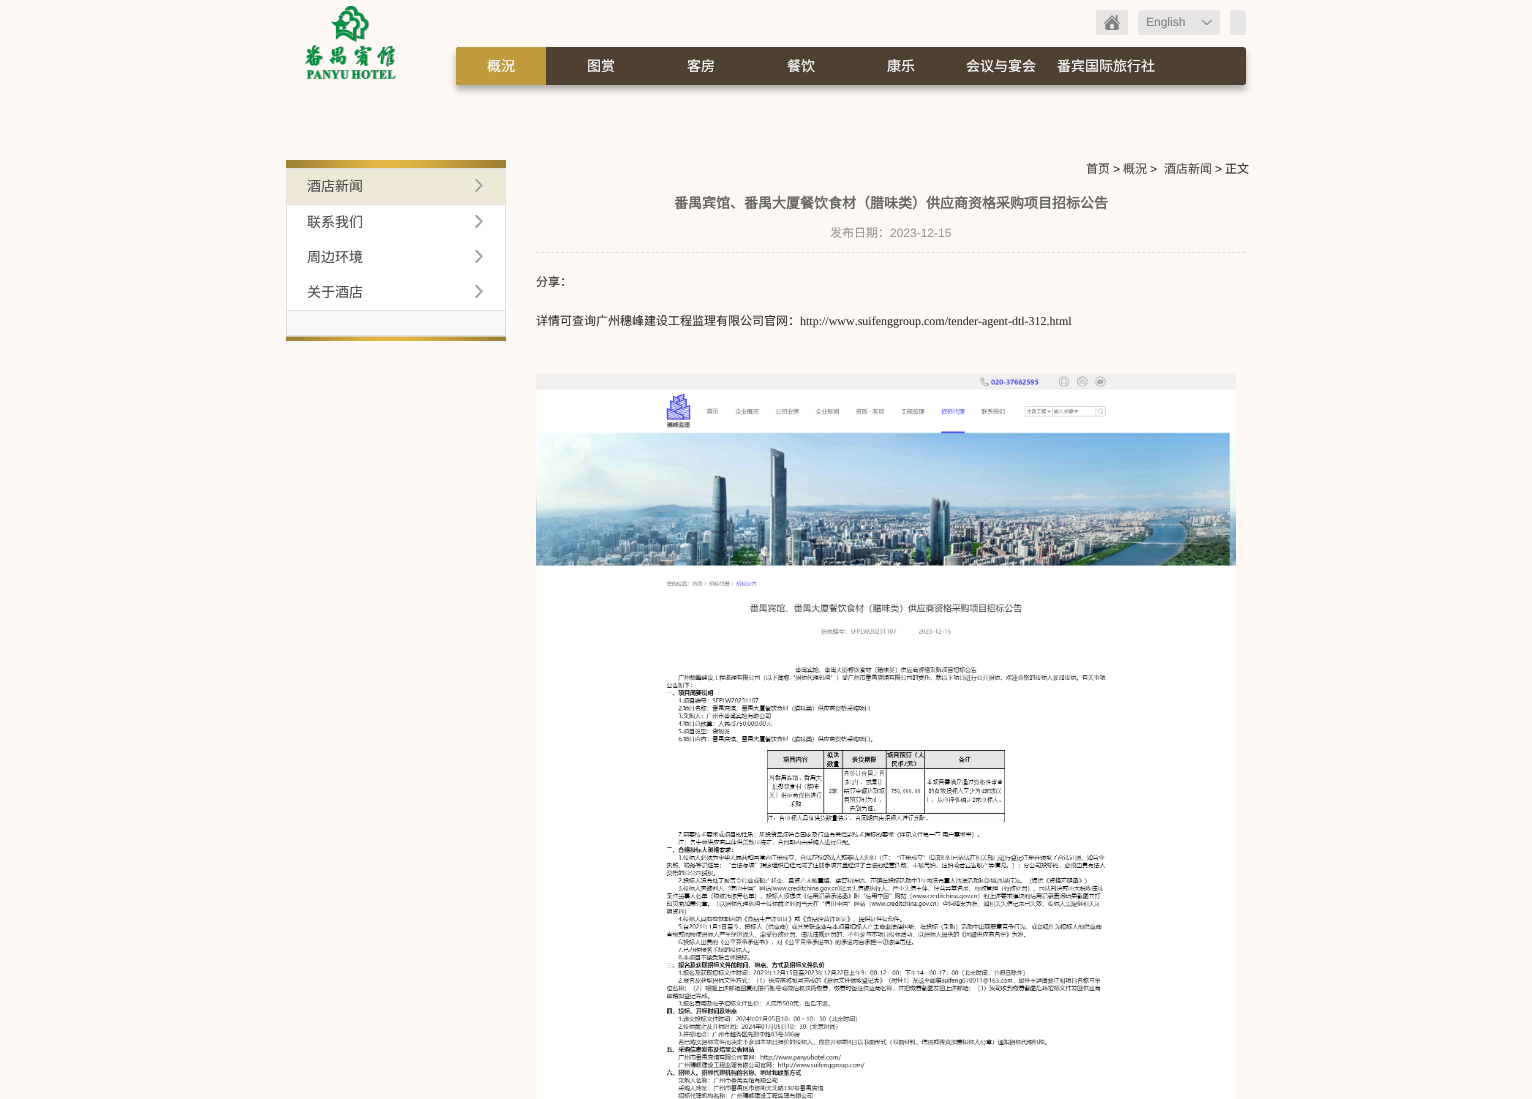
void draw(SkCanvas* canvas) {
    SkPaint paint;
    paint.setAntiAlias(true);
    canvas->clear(0xFFFDF8F3);
    canvas->drawImageRect(SkImages::DeferredFromEncodedData(SkData::MakeFromFileName("img1.png")), SkRect::MakeXYWH(305, 5, 91, 74), SkSamplingOptions());
    paint.setColor(0xFFE6E4E4);
    canvas->drawRoundRect(SkRect::MakeXYWH(1096, 10, 32, 25), 3, 3, paint);
    canvas->drawImageRect(SkImages::DeferredFromEncodedData(SkData::MakeFromFileName("img2.png")), SkRect::MakeXYWH(1104, 15, 16, 15), SkSamplingOptions());
    canvas->drawRoundRect(SkRect::MakeXYWH(1138, 10, 82, 25), 3, 3, paint);
    SkFont font1(fontMgr->matchFamilyStyle("Liberation Sans", SkFontStyle::Normal()), 12);
    font1.setSubpixel(true);
    paint.setColor(0xFF7E7E7E);
    canvas->drawString("English", 1146, 26, font1, paint);
    canvas->drawImageRect(SkImages::DeferredFromEncodedData(SkData::MakeFromFileName("img3.png")), SkRect::MakeXYWH(1202, 19, 10, 6), SkSamplingOptions());
    paint.setColor(0xFFE6E4E4);
    canvas->drawRoundRect(SkRect::MakeXYWH(1230, 10, 16, 25), 3, 3, paint);
    paint.setColor(0x4D000000);
    paint.setMaskFilter(SkMaskFilter::MakeBlur(kNormal_SkBlurStyle, 3));
    canvas->drawRoundRect(SkRect::MakeXYWH(456, 52, 790, 38), 3, 3, paint);
    paint.setMaskFilter(nullptr);
    paint.setColor(0xFF4E4032);
    canvas->drawRoundRect(SkRect::MakeXYWH(456, 47, 790, 38), 3, 3, paint);
    paint.setColor(0xFFBF9B3B);
    canvas->drawPath(SkPathBuilder().moveTo(459, 47).lineTo(546, 47).lineTo(546, 85).lineTo(459, 85).cubicTo(457.5f, 85, 456, 83.5f, 456, 82).lineTo(456, 50).cubicTo(456, 48.5f, 457.5f, 47, 459, 47).close().detach(), paint);
    SkFont font2(fontMgr->matchFamilyStyle("Noto Sans CJK SC", SkFontStyle::Normal()), 14);
    font2.setSubpixel(true);
    paint.setColor(0xFFFFFFFF);
    canvas->drawString("概況", 487, 71, font2, paint);
    canvas->drawString("图赏", 587, 71, font2, paint);
    canvas->drawString("客房", 687, 71, font2, paint);
    canvas->drawString("餐饮", 787, 71, font2, paint);
    canvas->drawString("康乐", 887, 71, font2, paint);
    canvas->drawString("会议与宴会", 966, 71, font2, paint);
    canvas->drawString("番宾国际旅行社", 1057, 71, font2, paint);
    paint.setColor(0xFFF8F8F8);
    canvas->drawRect(SkRect::MakeXYWH(287, 311, 218, 24), paint);
    canvas->drawImageRect(SkImages::DeferredFromEncodedData(SkData::MakeFromFileName("img4.png")), SkRect::MakeXYWH(286, 160, 220, 8), SkSamplingOptions());
    paint.setStyle(SkPaint::kStroke_Style);
    paint.setStrokeWidth(1);
    paint.setColor(0xFFDEDEDD);
    canvas->drawRect(SkRect::MakeXYWH(286.5f, 168.5f, 219, 167), paint);
    paint.setStyle(SkPaint::kFill_Style);
    paint.setColor(0xFFE2E2E2);
    canvas->drawRect(SkRect::MakeXYWH(287, 204, 218, 1), paint);
    paint.setColor(0xFFEEE8D8);
    canvas->drawRect(SkRect::MakeXYWH(287, 169, 218, 35), paint);
    canvas->drawImageRect(SkImages::DeferredFromEncodedData(SkData::MakeFromFileName("img5.png")), SkRect::MakeXYWH(475, 179, 8, 13), SkSamplingOptions());
    paint.setColor(0xFF4E4E4E);
    canvas->drawString("酒店新闻", 307, 191, font2, paint);
    paint.setColor(0xFFFFFFFF);
    canvas->drawRect(SkRect::MakeXYWH(287, 205, 218, 105), paint);
    canvas->drawImageRect(SkImages::DeferredFromEncodedData(SkData::MakeFromFileName("img6.png")), SkRect::MakeXYWH(475, 215, 8, 13), SkSamplingOptions());
    paint.setColor(0xFF4E4E4E);
    canvas->drawString("联系我们", 307, 227, font2, paint);
    canvas->drawImageRect(SkImages::DeferredFromEncodedData(SkData::MakeFromFileName("img6.png")), SkRect::MakeXYWH(475, 250, 8, 13), SkSamplingOptions());
    canvas->drawString("周边环境", 307, 262, font2, paint);
    canvas->drawImageRect(SkImages::DeferredFromEncodedData(SkData::MakeFromFileName("img6.png")), SkRect::MakeXYWH(475, 285, 8, 13), SkSamplingOptions());
    canvas->drawString("关于酒店", 307, 297, font2, paint);
    paint.setColor(0xFFDFDFDF);
    canvas->drawRect(SkRect::MakeXYWH(287, 310, 218, 1), paint);
    canvas->drawImageRect(SkImages::DeferredFromEncodedData(SkData::MakeFromFileName("img7.png")), SkRect::MakeXYWH(286, 336, 220, 5), SkSamplingOptions());
    SkFont font3(fontMgr->matchFamilyStyle("Noto Sans CJK SC", SkFontStyle::Normal()), 12);
    font3.setSubpixel(true);
    paint.setColor(0xFF484848);
    canvas->drawString("首页", 1086, 173, font3, paint);
    paint.setColor(0xFF333333);
    canvas->drawString(">", 1113, 173, font1, paint);
    paint.setColor(0xFF484848);
    canvas->drawString("概況", 1123, 173, font3, paint);
    paint.setColor(0xFF333333);
    canvas->drawString(">", 1150, 173, font1, paint);
    paint.setColor(0xFF484848);
    canvas->drawString("酒店新闻", 1164, 173, font3, paint);
    paint.setColor(0xFF333333);
    canvas->drawString(">", 1215, 173, font1, paint);
    canvas->drawString("正文", 1225, 173, font3, paint);
    SkFont font4(fontMgr->matchFamilyStyle("Noto Sans CJK SC", SkFontStyle::Bold()), 14);
    font4.setSubpixel(true);
    paint.setColor(0xFF666666);
    canvas->drawString("番禺宾馆、番禺大厦餐饮食材（腊味类）供应商资格采购项目招标公告", 674, 208, font4, paint);
    paint.setColor(0xFF999999);
    canvas->drawString("发布日期：", 830, 237, font3, paint);
    canvas->drawString("2023-12-15", 890, 237, font1, paint);
    paint.setStyle(SkPaint::kStroke_Style);
    paint.setColor(0xFFDDDDDD);
    paint.setPathEffect(SkDashPathEffect::Make({{3, 2.01f}}, 0));
    canvas->drawPath(SkPathBuilder().moveTo(536, 252.5f).lineTo(1246, 252.5f).detach(), paint);
    paint.setPathEffect(nullptr);
    paint.setStyle(SkPaint::kFill_Style);
    paint.setColor(0xFF333333);
    canvas->drawString("分享：", 536, 286, font3, paint);
    canvas->drawString("详情可查询广州穗峰建设工程监理有限公司官网：", 536, 325, font3, paint);
    SkFont font5(fontMgr->matchFamilyStyle("Liberation Serif", SkFontStyle::Normal()), 12);
    font5.setSubpixel(true);
    canvas->drawString("http://www.suifenggroup.com/tender-agent-dtl-312.html", 800, 325, font5, paint);
    canvas->drawImageRect(SkImages::DeferredFromEncodedData(SkData::MakeFromFileName("img8.png")), SkRect::MakeXYWH(536, 374, 700, 725), SkSamplingOptions());
}
